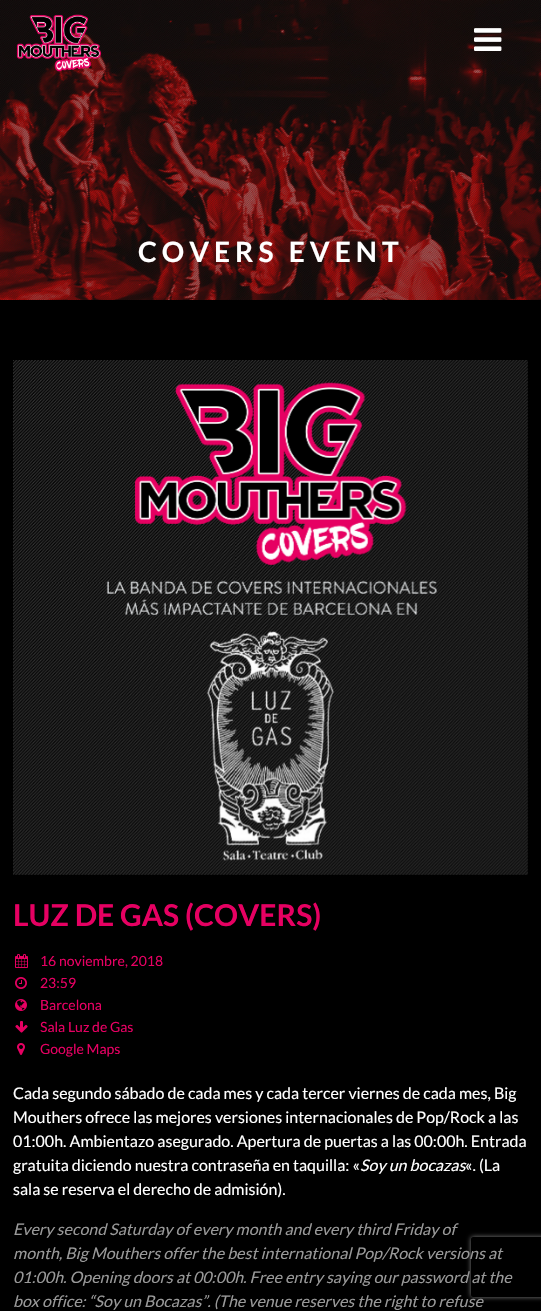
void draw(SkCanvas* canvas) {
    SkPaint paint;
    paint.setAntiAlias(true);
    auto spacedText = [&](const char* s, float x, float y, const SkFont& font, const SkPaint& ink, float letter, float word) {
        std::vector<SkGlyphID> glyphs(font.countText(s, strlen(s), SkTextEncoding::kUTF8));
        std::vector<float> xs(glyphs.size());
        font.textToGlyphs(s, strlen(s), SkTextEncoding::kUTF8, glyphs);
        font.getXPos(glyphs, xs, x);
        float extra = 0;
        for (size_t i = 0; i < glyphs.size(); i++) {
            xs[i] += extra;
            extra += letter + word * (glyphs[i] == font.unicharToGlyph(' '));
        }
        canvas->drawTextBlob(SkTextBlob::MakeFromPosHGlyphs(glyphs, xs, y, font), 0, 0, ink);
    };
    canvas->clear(0xFF000000);
    canvas->drawImageRect(SkImages::DeferredFromEncodedData(SkData::MakeFromFileName("img3.png")), SkRect::MakeXYWH(0, 0, 541, 300), SkSamplingOptions());
    canvas->drawImageRect(SkImages::DeferredFromEncodedData(SkData::MakeFromFileName("img1.png")), SkRect::MakeXYWH(16, 14, 86, 58), SkSamplingOptions());
    canvas->drawImageRect(SkImages::DeferredFromEncodedData(SkData::MakeFromFileName("img2.png")), SkRect::MakeXYWH(474, 28, 28, 23), SkSamplingOptions());
    SkFont font1(fontMgr->matchFamilyStyle("Lato", SkFontStyle::Bold()), 28);
    font1.setSubpixel(true);
    paint.setColor(0xFFFFFFFF);
    spacedText("COVERS EVENT", 138, 262, font1, paint, 5, 0);
    canvas->drawImageRect(SkImages::DeferredFromEncodedData(SkData::MakeFromFileName("img4.png")), SkRect::MakeXYWH(13, 360, 515, 515), SkSamplingOptions());
    SkFont font2(fontMgr->matchFamilyStyle("Lato", SkFontStyle::Bold()), 30);
    font2.setSubpixel(true);
    paint.setColor(0xFFE60062);
    canvas->drawString("LUZ DE GAS (COVERS)", 13, 926, font2, paint);
    canvas->drawImageRect(SkImages::DeferredFromEncodedData(SkData::MakeFromFileName("img5.png")), SkRect::MakeXYWH(15, 954, 13, 14), SkSamplingOptions());
    SkFont font3(fontMgr->matchFamilyStyle("Lato", SkFontStyle::Normal()), 14);
    font3.setSubpixel(true);
    canvas->drawString("16 noviembre, 2018", 40, 966, font3, paint);
    canvas->drawImageRect(SkImages::DeferredFromEncodedData(SkData::MakeFromFileName("img6.png")), SkRect::MakeXYWH(15, 977, 12, 12), SkSamplingOptions());
    canvas->drawString("23:59", 40, 988, font3, paint);
    canvas->drawImageRect(SkImages::DeferredFromEncodedData(SkData::MakeFromFileName("img7.png")), SkRect::MakeXYWH(15, 999, 12, 12), SkSamplingOptions());
    canvas->drawString("Barcelona", 40, 1010, font3, paint);
    canvas->drawImageRect(SkImages::DeferredFromEncodedData(SkData::MakeFromFileName("img8.png")), SkRect::MakeXYWH(15, 1021, 13, 12), SkSamplingOptions());
    canvas->drawString("Sala Luz de Gas", 40, 1032, font3, paint);
    canvas->drawImageRect(SkImages::DeferredFromEncodedData(SkData::MakeFromFileName("img9.png")), SkRect::MakeXYWH(17, 1043, 8, 12), SkSamplingOptions());
    canvas->drawString("Google Maps", 40, 1054, font3, paint);
    SkFont font4(fontMgr->matchFamilyStyle("Lato", SkFontStyle::Normal()), 16);
    font4.setSubpixel(true);
    paint.setColor(0xFFFFFFFF);
    canvas->drawString("Cada segundo sábado de cada mes y cada tercer viernes de cada mes, Big", 13, 1099, font4, paint);
    canvas->drawString("Mouthers ofrece las mejores versiones internacionales de Pop/Rock a las", 13, 1123, font4, paint);
    canvas->drawString("01:00h. Ambientazo asegurado. Apertura de puertas a las 00:00h. Entrada", 13, 1147, font4, paint);
    canvas->drawString("gratuita diciendo nuestra contraseña en taquilla: «", 13, 1171, font4, paint);
    SkFont font5(fontMgr->matchFamilyStyle("Lato", SkFontStyle::Italic()), 16);
    font5.setSubpixel(true);
    canvas->drawString("Soy un bocazas", 360, 1171, font5, paint);
    canvas->drawString("«. (La", 465, 1171, font4, paint);
    canvas->drawString("sala se reserva el derecho de admisión).", 13, 1195, font4, paint);
    paint.setColor(0xFF999999);
    canvas->drawString("Every second Saturday of every month and every third Friday of", 13, 1235, font5, paint);
    canvas->drawString("month, Big Mouthers offer the best international Pop/Rock versions at", 13, 1259, font5, paint);
    canvas->drawString("01:00h. Opening doors at 00:00h. Free entry saying our password at the", 13, 1283, font5, paint);
    canvas->drawString("box office: “Soy un Bocazas”. (The venue reserves the right to refuse", 13, 1307, font5, paint);
    canvas->save();
    canvas->clipPath(SkPathBuilder(SkPathFillType::kEvenOdd).moveTo(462, 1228).lineTo(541, 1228).lineTo(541, 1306).lineTo(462, 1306).close().moveTo(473, 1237).lineTo(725, 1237).cubicTo(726, 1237, 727, 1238, 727, 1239).lineTo(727, 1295).cubicTo(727, 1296, 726, 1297, 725, 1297).lineTo(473, 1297).cubicTo(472, 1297, 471, 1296, 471, 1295).lineTo(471, 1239).cubicTo(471, 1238, 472, 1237, 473, 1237).close().detach(), true);
    paint.setColor(0xFF808080);
    paint.setMaskFilter(SkMaskFilter::MakeBlur(kNormal_SkBlurStyle, 2.5f));
    canvas->drawRoundRect(SkRect::MakeXYWH(471, 1237, 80, 60), 2, 2, paint);
    paint.setMaskFilter(nullptr);
    canvas->restore();
}
